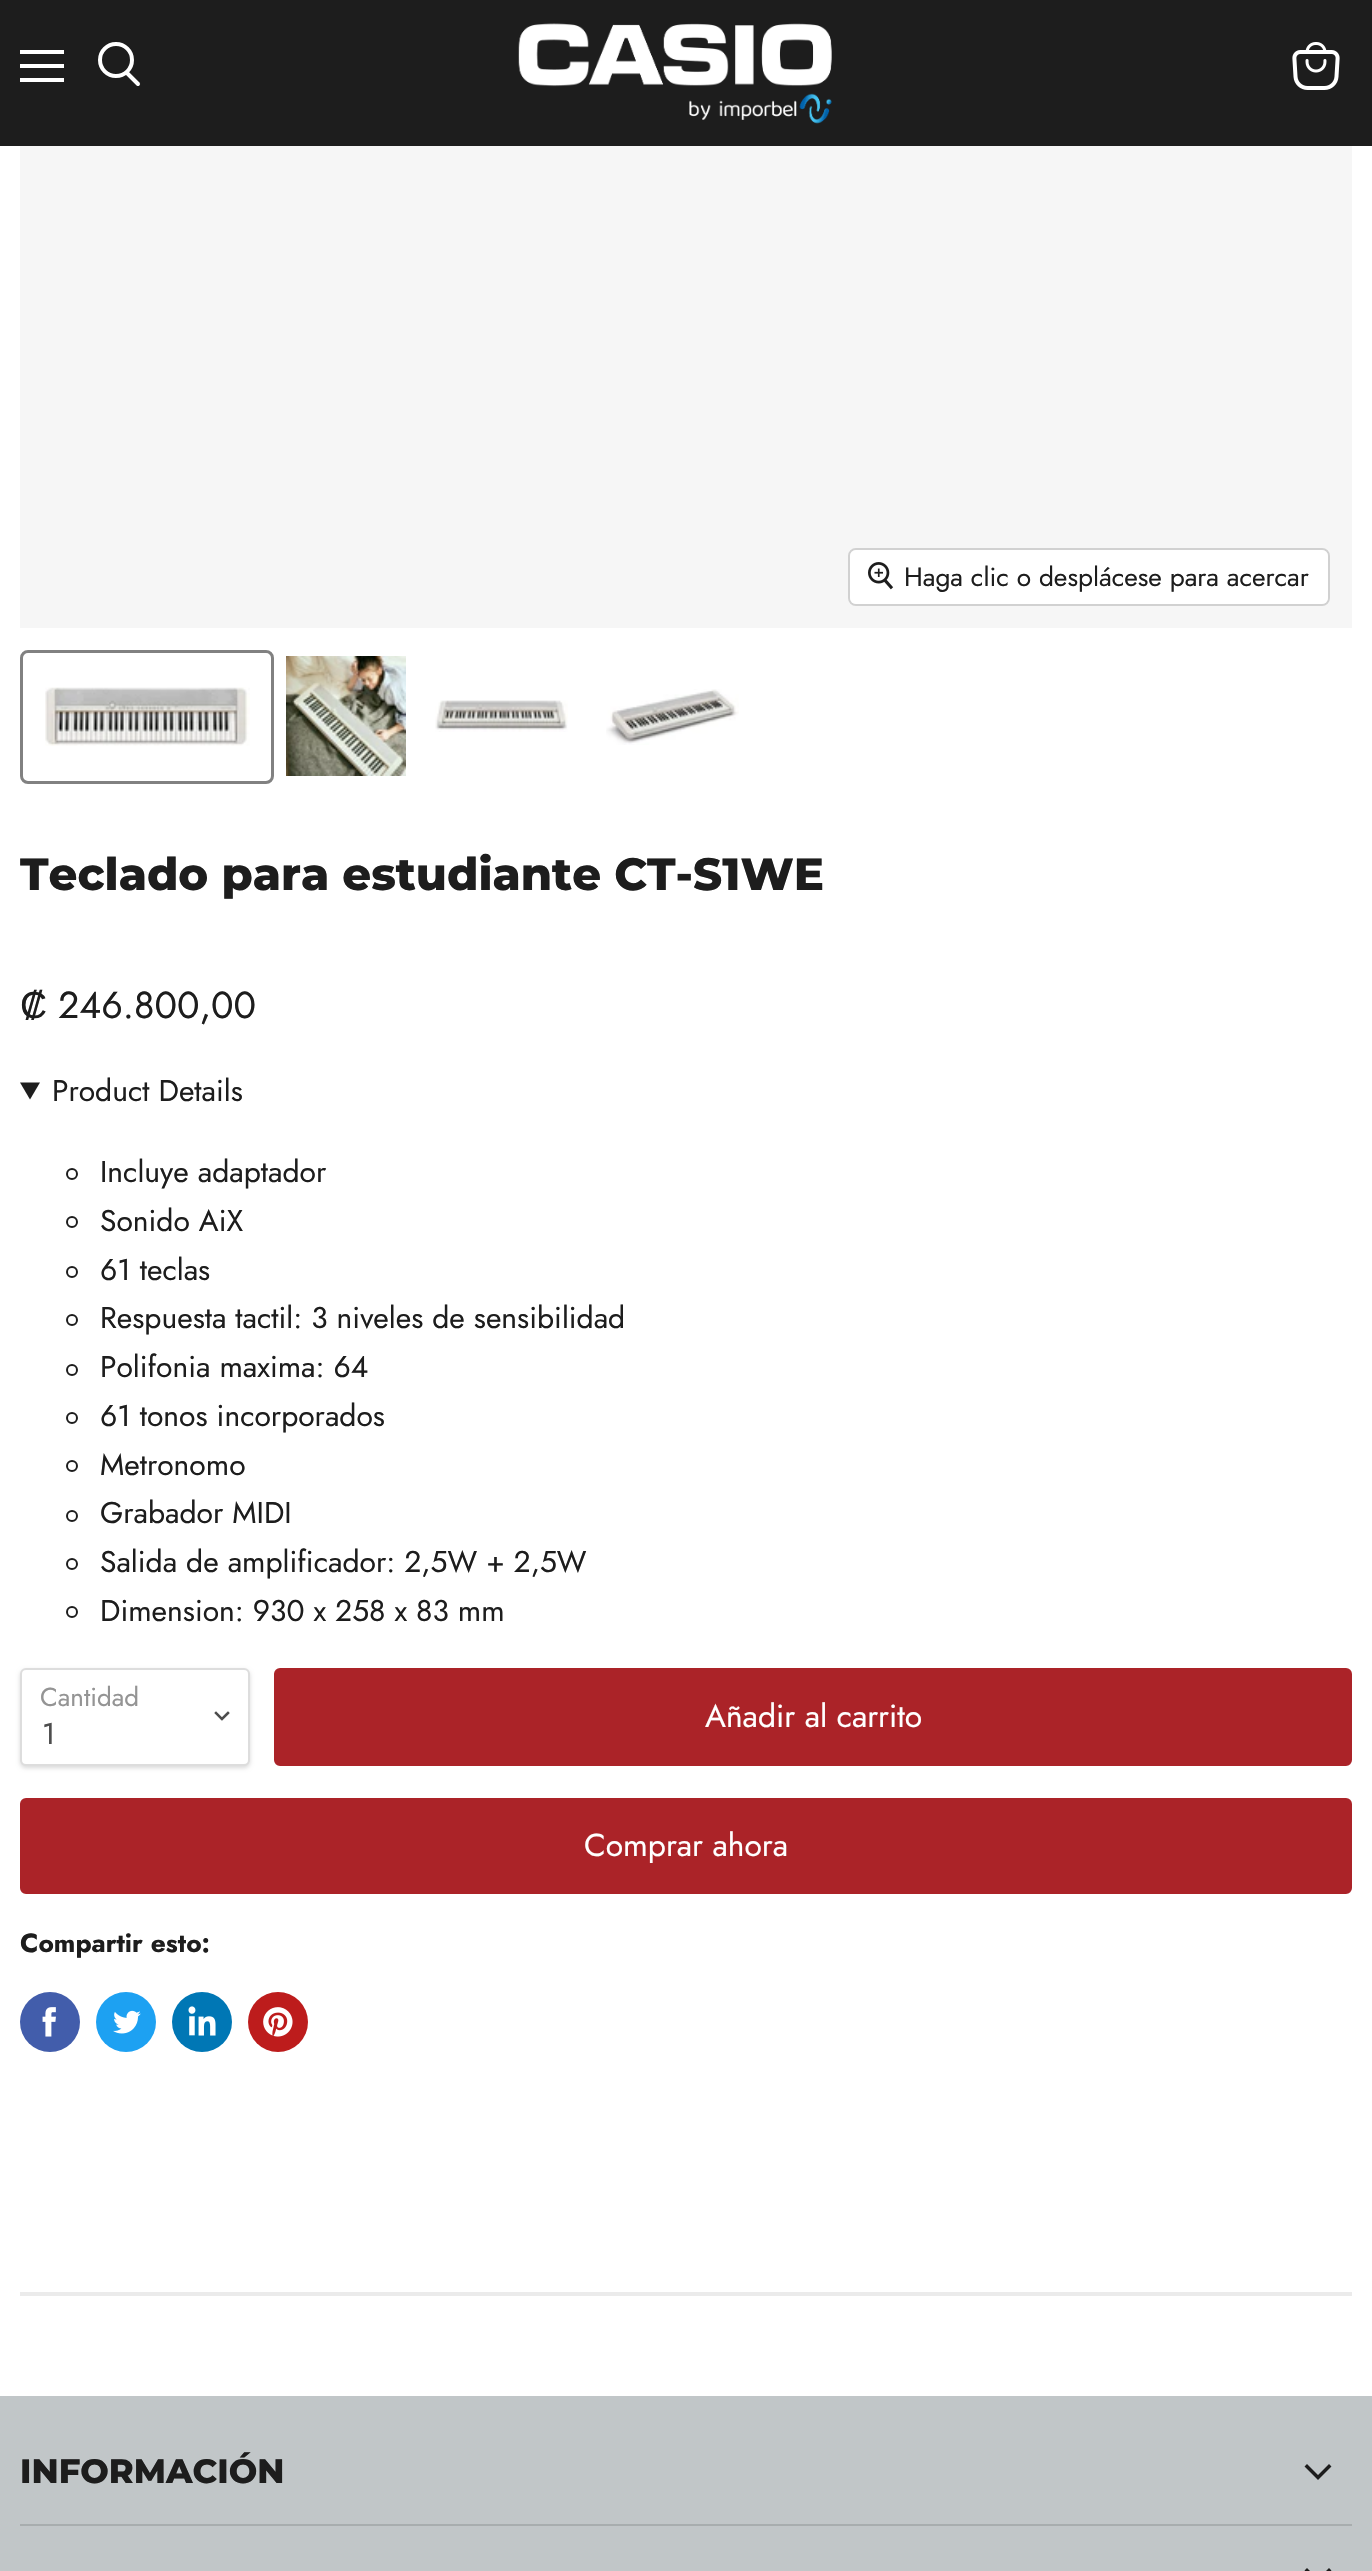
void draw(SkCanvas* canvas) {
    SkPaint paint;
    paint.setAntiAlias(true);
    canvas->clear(0xFFFFFFFF);
    paint.setColor(0xFF1D1D1D);
    canvas->drawRect(SkRect::MakeXYWH(0, 0, 1372, 146), paint);
    paint.setColor(0xFFFFFFFF);
    canvas->drawRect(SkRect::MakeXYWH(20, 50, 44, 4), paint);
    canvas->drawRect(SkRect::MakeXYWH(20, 64, 44, 4), paint);
    canvas->drawRect(SkRect::MakeXYWH(20, 78, 44, 4), paint);
    paint.setStyle(SkPaint::kStroke_Style);
    paint.setStrokeWidth(4);
    paint.setStrokeCap(SkPaint::kRound_Cap);
    canvas->drawPath(SkPathBuilder().moveTo(138, 84).lineTo(127, 73).detach(), paint);
    paint.setStrokeCap(SkPaint::kButt_Cap);
    canvas->drawCircle(116, 60, 16, paint);
    canvas->drawImageRect(SkImages::DeferredFromEncodedData(SkData::MakeFromFileName("img1.png")), SkRect::MakeXYWH(518, 23, 314, 101), SkSamplingOptions());
    canvas->drawImageRect(SkImages::DeferredFromEncodedData(SkData::MakeFromFileName("img2.png")), SkRect::MakeXYWH(1292, 42, 48, 48), SkSamplingOptions());
    paint.setStyle(SkPaint::kFill_Style);
    paint.setColor(0xFFF6F6F6);
    canvas->drawRect(SkRect::MakeXYWH(20, 146, 1332, 482), paint);
    paint.setStyle(SkPaint::kStroke_Style);
    paint.setStrokeWidth(2);
    paint.setColor(0xFFD1D1D1);
    canvas->drawRoundRect(SkRect::MakeXYWH(849, 549, 480, 56), 7, 7, paint);
    paint.setStyle(SkPaint::kFill_Style);
    paint.setColor(0xE6FFFFFF);
    canvas->drawRoundRect(SkRect::MakeXYWH(850, 550, 478, 54), 6, 6, paint);
    canvas->drawImageRect(SkImages::DeferredFromEncodedData(SkData::MakeFromFileName("img3.png")), SkRect::MakeXYWH(868, 562, 26, 28), SkSamplingOptions());
    SkFont font1(fontMgr->matchFamilyStyle("Jost", SkFontStyle::Normal()), 26.25f);
    font1.setSubpixel(true);
    paint.setColor(0xFF1D1D1D);
    canvas->drawString("Haga clic o desplácese para acercar", 904, 586, font1, paint);
    paint.setStyle(SkPaint::kStroke_Style);
    paint.setStrokeWidth(3);
    paint.setColor(0xFF818181);
    canvas->drawRoundRect(SkRect::MakeXYWH(21.5f, 651.5f, 251, 131), 6.5f, 6.5f, paint);
    canvas->drawImageRect(SkImages::DeferredFromEncodedData(SkData::MakeFromFileName("img4.png")), SkRect::MakeXYWH(45, 687, 205, 59), SkSamplingOptions());
    canvas->drawImageRect(SkImages::DeferredFromEncodedData(SkData::MakeFromFileName("img5.png")), SkRect::MakeXYWH(286, 656, 120, 120), SkSamplingOptions());
    canvas->drawImageRect(SkImages::DeferredFromEncodedData(SkData::MakeFromFileName("img6.png")), SkRect::MakeXYWH(435, 700, 133, 32), SkSamplingOptions());
    canvas->drawImageRect(SkImages::DeferredFromEncodedData(SkData::MakeFromFileName("img7.png")), SkRect::MakeXYWH(606, 689, 133, 56), SkSamplingOptions());
    SkFont font2(fontMgr->matchFamilyStyle("Montserrat", SkFontStyle(800, SkFontStyle::kNormal_Width, SkFontStyle::kUpright_Slant)), 45);
    font2.setSubpixel(true);
    paint.setStyle(SkPaint::kFill_Style);
    paint.setColor(0xFF1D1D1D);
    canvas->drawString("Teclado para estudiante CT-S1WE", 20, 890, font2, paint);
    SkFont font3(fontMgr->matchFamilyStyle("Liberation Sans", SkFontStyle::Normal()), 37.5f);
    font3.setSubpixel(true);
    canvas->drawString("₡", 20, 1018, font3, paint);
    SkFont font4(fontMgr->matchFamilyStyle("Jost", SkFontStyle::Normal()), 37.5f);
    font4.setSubpixel(true);
    canvas->drawString("246.800,00", 58, 1018, font4, paint);
    canvas->drawPath(SkPathBuilder().moveTo(20, 1082.5f).lineTo(40, 1082.5f).lineTo(30, 1099.5f).close().detach(), paint);
    SkFont font5(fontMgr->matchFamilyStyle("Jost", SkFontStyle::Normal()), 30);
    font5.setSubpixel(true);
    canvas->drawString("Product Details", 52, 1101, font5, paint);
    paint.setStyle(SkPaint::kStroke_Style);
    paint.setStrokeWidth(2);
    canvas->drawCircle(72, 1174, 5, paint);
    paint.setStyle(SkPaint::kFill_Style);
    canvas->drawString("Incluye adaptador", 100, 1182, font5, paint);
    paint.setStyle(SkPaint::kStroke_Style);
    canvas->drawCircle(72, 1222, 5, paint);
    paint.setStyle(SkPaint::kFill_Style);
    canvas->drawString("Sonido AiX", 100, 1231, font5, paint);
    paint.setStyle(SkPaint::kStroke_Style);
    canvas->drawCircle(72, 1272, 5, paint);
    paint.setStyle(SkPaint::kFill_Style);
    canvas->drawString("61 teclas", 100, 1280, font5, paint);
    paint.setStyle(SkPaint::kStroke_Style);
    canvas->drawCircle(72, 1320, 5, paint);
    paint.setStyle(SkPaint::kFill_Style);
    canvas->drawString("Respuesta tactil: 3 niveles de sensibilidad", 100, 1328, font5, paint);
    paint.setStyle(SkPaint::kStroke_Style);
    canvas->drawCircle(72, 1370, 5, paint);
    paint.setStyle(SkPaint::kFill_Style);
    canvas->drawString("Polifonia maxima: 64", 100, 1377, font5, paint);
    paint.setStyle(SkPaint::kStroke_Style);
    canvas->drawCircle(72, 1418, 5, paint);
    paint.setStyle(SkPaint::kFill_Style);
    canvas->drawString("61 tonos incorporados", 100, 1426, font5, paint);
    paint.setStyle(SkPaint::kStroke_Style);
    canvas->drawCircle(72, 1466, 5, paint);
    paint.setStyle(SkPaint::kFill_Style);
    canvas->drawString("Metronomo", 100, 1475, font5, paint);
    paint.setStyle(SkPaint::kStroke_Style);
    canvas->drawCircle(72, 1516, 5, paint);
    paint.setStyle(SkPaint::kFill_Style);
    canvas->drawString("Grabador MIDI", 100, 1523, font5, paint);
    paint.setStyle(SkPaint::kStroke_Style);
    canvas->drawCircle(72, 1564, 5, paint);
    paint.setStyle(SkPaint::kFill_Style);
    canvas->drawString("Salida de amplificador: 2,5W + 2,5W", 100, 1572, font5, paint);
    paint.setStyle(SkPaint::kStroke_Style);
    canvas->drawCircle(72, 1612, 5, paint);
    paint.setStyle(SkPaint::kFill_Style);
    canvas->drawString("Dimension: 930 x 258 x 83 mm", 100, 1621, font5, paint);
    paint.setColor(0x26000000);
    paint.setMaskFilter(SkMaskFilter::MakeBlur(kNormal_SkBlurStyle, 2));
    canvas->drawRoundRect(SkRect::MakeXYWH(20, 1670, 230, 98), 6, 6, paint);
    paint.setMaskFilter(nullptr);
    paint.setColor(0xFFFFFFFF);
    canvas->drawRoundRect(SkRect::MakeXYWH(21, 1669, 228, 96), 5, 5, paint);
    paint.setStyle(SkPaint::kStroke_Style);
    paint.setColor(0xFFDDDDDD);
    canvas->drawRoundRect(SkRect::MakeXYWH(21, 1669, 228, 96), 5, 5, paint);
    SkFont font6(fontMgr->matchFamilyStyle("Jost", SkFontStyle::Normal()), 26);
    font6.setSubpixel(true);
    paint.setStyle(SkPaint::kFill_Style);
    paint.setColor(0xFF949494);
    canvas->drawString("Cantidad", 40, 1706, font6, paint);
    paint.setStyle(SkPaint::kStroke_Style);
    paint.setStrokeWidth(2.5f);
    paint.setStrokeCap(SkPaint::kSquare_Cap);
    paint.setColor(0xFF4D4D4D);
    canvas->drawPath(SkPathBuilder().moveTo(222, 1719).lineTo(228, 1713).moveTo(222, 1719).lineTo(216, 1713).detach(), paint);
    paint.setStyle(SkPaint::kFill_Style);
    canvas->drawString("1", 42, 1744, font5, paint);
    paint.setColor(0xFFAB2328);
    canvas->drawRoundRect(SkRect::MakeXYWH(275, 1669, 1076, 96), 5, 5, paint);
    paint.setStyle(SkPaint::kStroke_Style);
    paint.setStrokeWidth(2);
    paint.setStrokeCap(SkPaint::kButt_Cap);
    canvas->drawRoundRect(SkRect::MakeXYWH(275, 1669, 1076, 96), 5, 5, paint);
    SkFont font7(fontMgr->matchFamilyStyle("Jost", SkFontStyle::Normal()), 31.75f);
    font7.setSubpixel(true);
    paint.setStyle(SkPaint::kFill_Style);
    paint.setColor(0xFFFFFFFF);
    canvas->drawString("Añadir al carrito", 705, 1727, font7, paint);
    paint.setColor(0xFFAB2328);
    canvas->drawRoundRect(SkRect::MakeXYWH(21, 1799, 1330, 94), 5, 5, paint);
    paint.setStyle(SkPaint::kStroke_Style);
    canvas->drawRoundRect(SkRect::MakeXYWH(21, 1799, 1330, 94), 5, 5, paint);
    paint.setStyle(SkPaint::kFill_Style);
    paint.setColor(0xFFFFFFFF);
    canvas->drawString("Comprar ahora", 584, 1856, font7, paint);
    SkFont font8(fontMgr->matchFamilyStyle("Jost", SkFontStyle::Bold()), 26.25f);
    font8.setSubpixel(true);
    paint.setColor(0xFF1D1D1D);
    canvas->drawString("Compartir esto:", 20, 1952, font8, paint);
    paint.setColor(0xFF425DAB);
    canvas->drawCircle(50, 2022, 30, paint);
    canvas->drawImageRect(SkImages::DeferredFromEncodedData(SkData::MakeFromFileName("img8.png")), SkRect::MakeXYWH(42, 2007, 14, 30), SkSamplingOptions());
    paint.setColor(0xFF1DA1F2);
    canvas->drawCircle(126, 2022, 30, paint);
    canvas->drawImageRect(SkImages::DeferredFromEncodedData(SkData::MakeFromFileName("img9.png")), SkRect::MakeXYWH(113, 2010, 28, 24), SkSamplingOptions());
    paint.setColor(0xFF0077B5);
    canvas->drawCircle(202, 2022, 30, paint);
    canvas->drawImageRect(SkImages::DeferredFromEncodedData(SkData::MakeFromFileName("img10.png")), SkRect::MakeXYWH(188, 2006, 28, 30), SkSamplingOptions());
    paint.setColor(0xFFBD1C1C);
    canvas->drawCircle(278, 2022, 30, paint);
    canvas->drawImageRect(SkImages::DeferredFromEncodedData(SkData::MakeFromFileName("img11.png")), SkRect::MakeXYWH(263, 2007, 30, 30), SkSamplingOptions());
    paint.setColor(0xFFEBEBEB);
    canvas->drawRect(SkRect::MakeXYWH(20, 2292, 1332, 4), paint);
    paint.setColor(0xFFC1C6C8);
    canvas->drawRect(SkRect::MakeXYWH(0, 2396, 1372, 175), paint);
    paint.setColor(0xFFA8ADAE);
    canvas->drawRect(SkRect::MakeXYWH(20, 2524, 1332, 2), paint);
    SkFont font9(fontMgr->matchFamilyStyle("Montserrat", SkFontStyle(800, SkFontStyle::kNormal_Width, SkFontStyle::kUpright_Slant)), 33.75f);
    font9.setSubpixel(true);
    paint.setColor(0xFF1D1D1D);
    canvas->drawString("INFORMACIÓN", 20, 2483, font9, paint);
    paint.setStyle(SkPaint::kStroke_Style);
    paint.setStrokeWidth(3.5f);
    paint.setStrokeCap(SkPaint::kSquare_Cap);
    canvas->drawPath(SkPathBuilder().moveTo(1318, 2477.5f).lineTo(1329, 2466.5f).moveTo(1318, 2477.5f).lineTo(1307, 2466.5f).detach(), paint);
    canvas->drawPath(SkPathBuilder().moveTo(1318, 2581.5f).lineTo(1329, 2570.5f).moveTo(1318, 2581.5f).lineTo(1307, 2570.5f).detach(), paint);
}
